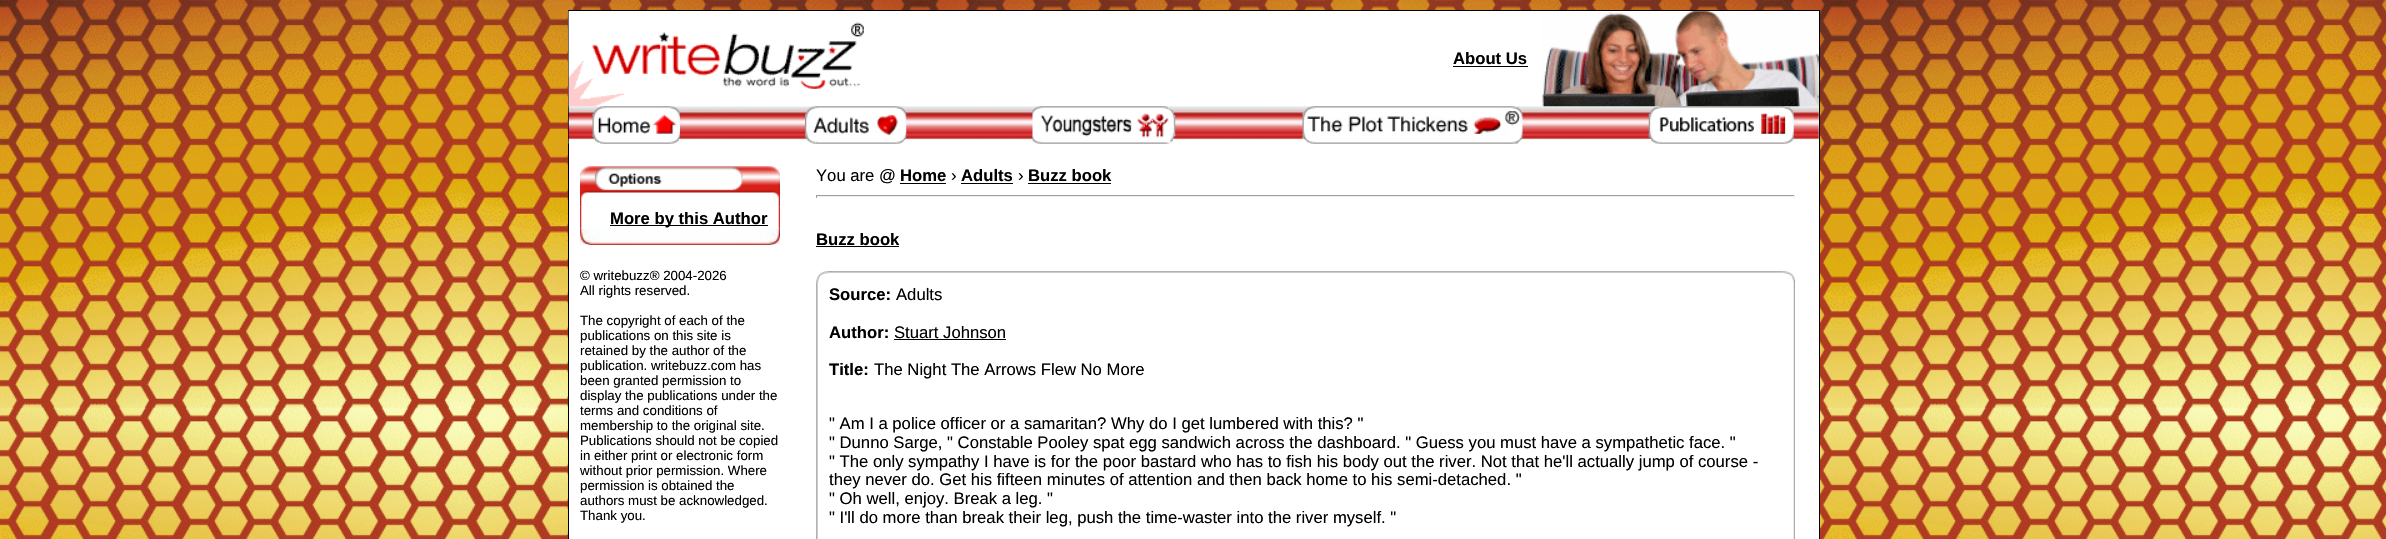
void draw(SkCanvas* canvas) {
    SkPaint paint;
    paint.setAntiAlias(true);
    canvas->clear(0xFFFFFFFF);
    canvas->drawImageRect(SkImages::DeferredFromEncodedData(SkData::MakeFromFileName("img1.png")), SkRect::MakeXYWH(0, 0, 2386, 539), SkSamplingOptions());
    paint.setColor(0xFFFFFFFF);
    canvas->drawRect(SkRect::MakeXYWH(568.5f, 10.5f, 1251, 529), paint);
    paint.setStyle(SkPaint::kStroke_Style);
    paint.setStrokeWidth(1);
    paint.setColor(0xFF000000);
    canvas->drawRect(SkRect::MakeXYWH(568.5f, 10.5f, 1251, 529), paint);
    canvas->drawImageRect(SkImages::DeferredFromEncodedData(SkData::MakeFromFileName("img2.png")), SkRect::MakeXYWH(568, 11, 1251, 133), SkSamplingOptions());
    canvas->drawImageRect(SkImages::DeferredFromEncodedData(SkData::MakeFromFileName("img3.png")), SkRect::MakeXYWH(568, 11, 296, 96), SkSamplingOptions());
    SkFont font1(fontMgr->matchFamilyStyle("Liberation Sans", SkFontStyle::Bold()), 16.67f);
    font1.setSubpixel(true);
    paint.setStyle(SkPaint::kFill_Style);
    canvas->drawString("About Us", 1453, 64, font1, paint);
    canvas->drawRect(SkRect::MakeXYWH(1453, 66, 75, 1), paint);
    canvas->drawImageRect(SkImages::DeferredFromEncodedData(SkData::MakeFromFileName("img4.png")), SkRect::MakeXYWH(1540, 11, 279, 96), SkSamplingOptions());
    canvas->drawImageRect(SkImages::DeferredFromEncodedData(SkData::MakeFromFileName("img5.png")), SkRect::MakeXYWH(592, 106, 88, 38), SkSamplingOptions());
    canvas->drawImageRect(SkImages::DeferredFromEncodedData(SkData::MakeFromFileName("img6.png")), SkRect::MakeXYWH(805, 106, 102, 38), SkSamplingOptions());
    canvas->drawImageRect(SkImages::DeferredFromEncodedData(SkData::MakeFromFileName("img7.png")), SkRect::MakeXYWH(1032, 106, 144, 38), SkSamplingOptions());
    canvas->drawImageRect(SkImages::DeferredFromEncodedData(SkData::MakeFromFileName("img8.png")), SkRect::MakeXYWH(1302, 106, 221, 38), SkSamplingOptions());
    canvas->drawImageRect(SkImages::DeferredFromEncodedData(SkData::MakeFromFileName("img9.png")), SkRect::MakeXYWH(1648, 106, 146, 38), SkSamplingOptions());
    canvas->drawImageRect(SkImages::DeferredFromEncodedData(SkData::MakeFromFileName("img11.png")), SkRect::MakeXYWH(580, 206, 200, 23), SkSamplingOptions());
    canvas->drawImageRect(SkImages::DeferredFromEncodedData(SkData::MakeFromFileName("img10.png")), SkRect::MakeXYWH(580, 166, 200, 41), SkSamplingOptions());
    canvas->drawRect(SkRect::MakeXYWH(610, 225, 158, 1), paint);
    canvas->drawString("More by this Author", 610, 224, font1, paint);
    canvas->drawImageRect(SkImages::DeferredFromEncodedData(SkData::MakeFromFileName("img12.png")), SkRect::MakeXYWH(580, 228, 200, 17), SkSamplingOptions());
    SkFont font2(fontMgr->matchFamilyStyle("Liberation Sans", SkFontStyle::Normal()), 13.3f);
    font2.setSubpixel(true);
    canvas->drawString("© writebuzz® 2004-2026", 580, 280, font2, paint);
    canvas->drawString("All rights reserved.", 580, 295, font2, paint);
    canvas->drawString("The copyright of each of the", 580, 325, font2, paint);
    canvas->drawString("publications on this site is", 580, 340, font2, paint);
    canvas->drawString("retained by the author of the", 580, 355, font2, paint);
    canvas->drawString("publication. writebuzz.com has", 580, 370, font2, paint);
    canvas->drawString("been granted permission to", 580, 385, font2, paint);
    canvas->drawString("display the publications under the", 580, 400, font2, paint);
    canvas->drawString("terms and conditions of", 580, 415, font2, paint);
    canvas->drawString("membership to the original site.", 580, 430, font2, paint);
    canvas->drawString("Publications should not be copied", 580, 445, font2, paint);
    canvas->drawString("in either print or electronic form", 580, 460, font2, paint);
    canvas->drawString("without prior permission. Where", 580, 475, font2, paint);
    canvas->drawString("permission is obtained the", 580, 490, font2, paint);
    canvas->drawString("authors must be acknowledged.", 580, 505, font2, paint);
    canvas->drawString("Thank you.", 580, 520, font2, paint);
    SkFont font3(fontMgr->matchFamilyStyle("Liberation Sans", SkFontStyle::Normal()), 16.67f);
    font3.setSubpixel(true);
    canvas->drawString("You are @", 816, 181, font3, paint);
    canvas->drawString("Home", 900, 181, font1, paint);
    canvas->drawRect(SkRect::MakeXYWH(900, 183, 46, 1), paint);
    canvas->drawString("›", 951, 181, font3, paint);
    canvas->drawString("Adults", 961, 181, font1, paint);
    canvas->drawRect(SkRect::MakeXYWH(961, 183, 52, 1), paint);
    canvas->drawString("›", 1018, 181, font3, paint);
    canvas->drawString("Buzz book", 1028, 181, font1, paint);
    canvas->drawRect(SkRect::MakeXYWH(1028, 183, 83, 1), paint);
    paint.setColor(0xFF9F9F9F);
    canvas->drawRect(SkRect::MakeXYWH(816, 195, 979, 1), paint);
    paint.setColor(0xFFEEEEEE);
    canvas->drawRect(SkRect::MakeXYWH(1794, 195, 1, 3), paint);
    canvas->drawRect(SkRect::MakeXYWH(816, 196, 979, 1), paint);
    paint.setColor(0xFF9F9F9F);
    canvas->drawRect(SkRect::MakeXYWH(816, 195, 1, 3), paint);
    paint.setColor(0xFF000000);
    canvas->drawString("Buzz book", 816, 245, font1, paint);
    canvas->drawRect(SkRect::MakeXYWH(816, 246, 83, 1), paint);
    canvas->drawImageRect(SkImages::DeferredFromEncodedData(SkData::MakeFromFileName("img13.png")), SkRect::MakeXYWH(816, 271, 14, 14), SkSamplingOptions());
    canvas->drawImageRect(SkImages::DeferredFromEncodedData(SkData::MakeFromFileName("img14.png")), SkRect::MakeXYWH(830, 271, 953, 2), SkSamplingOptions());
    canvas->drawImageRect(SkImages::DeferredFromEncodedData(SkData::MakeFromFileName("img15.png")), SkRect::MakeXYWH(830, 271, 2, 1), SkSamplingOptions());
    canvas->drawImageRect(SkImages::DeferredFromEncodedData(SkData::MakeFromFileName("img16.png")), SkRect::MakeXYWH(1782, 271, 13, 14), SkSamplingOptions());
    canvas->drawImageRect(SkImages::DeferredFromEncodedData(SkData::MakeFromFileName("img17.png")), SkRect::MakeXYWH(816, 285, 2, 254), SkSamplingOptions());
    canvas->drawString("Source:", 829, 300, font1, paint);
    canvas->drawString("Adults", 896, 300, font3, paint);
    canvas->drawString("Author:", 829, 338, font1, paint);
    canvas->drawString("Stuart Johnson", 894, 338, font3, paint);
    canvas->drawRect(SkRect::MakeXYWH(894, 339, 112, 1), paint);
    canvas->drawString("Title:", 829, 375, font1, paint);
    canvas->drawString("The Night The Arrows Flew No More", 874, 375, font3, paint);
    canvas->drawString("\" Am I a police officer or a samaritan? Why do I get lumbered with this? \"", 829, 429, font3, paint);
    canvas->drawString("\" Dunno Sarge, \" Constable Pooley spat egg sandwich across the dashboard. \" Guess you must have a sympathetic face. \"", 829, 448, font3, paint);
    canvas->drawString("\" The only sympathy I have is for the poor bastard who has to fish his body out the river. Not that he'll actually jump of course -", 829, 467, font3, paint);
    canvas->drawString("they never do. Get his fifteen minutes of attention and then back home to his semi-detached. \"", 829, 485, font3, paint);
    canvas->drawString("\" Oh well, enjoy. Break a leg. \"", 829, 504, font3, paint);
    canvas->drawString("\" I'll do more than break their leg, push the time-waster into the river myself. \"", 829, 523, font3, paint);
    canvas->drawImageRect(SkImages::DeferredFromEncodedData(SkData::MakeFromFileName("img18.png")), SkRect::MakeXYWH(1793, 285, 2, 254), SkSamplingOptions());
}
